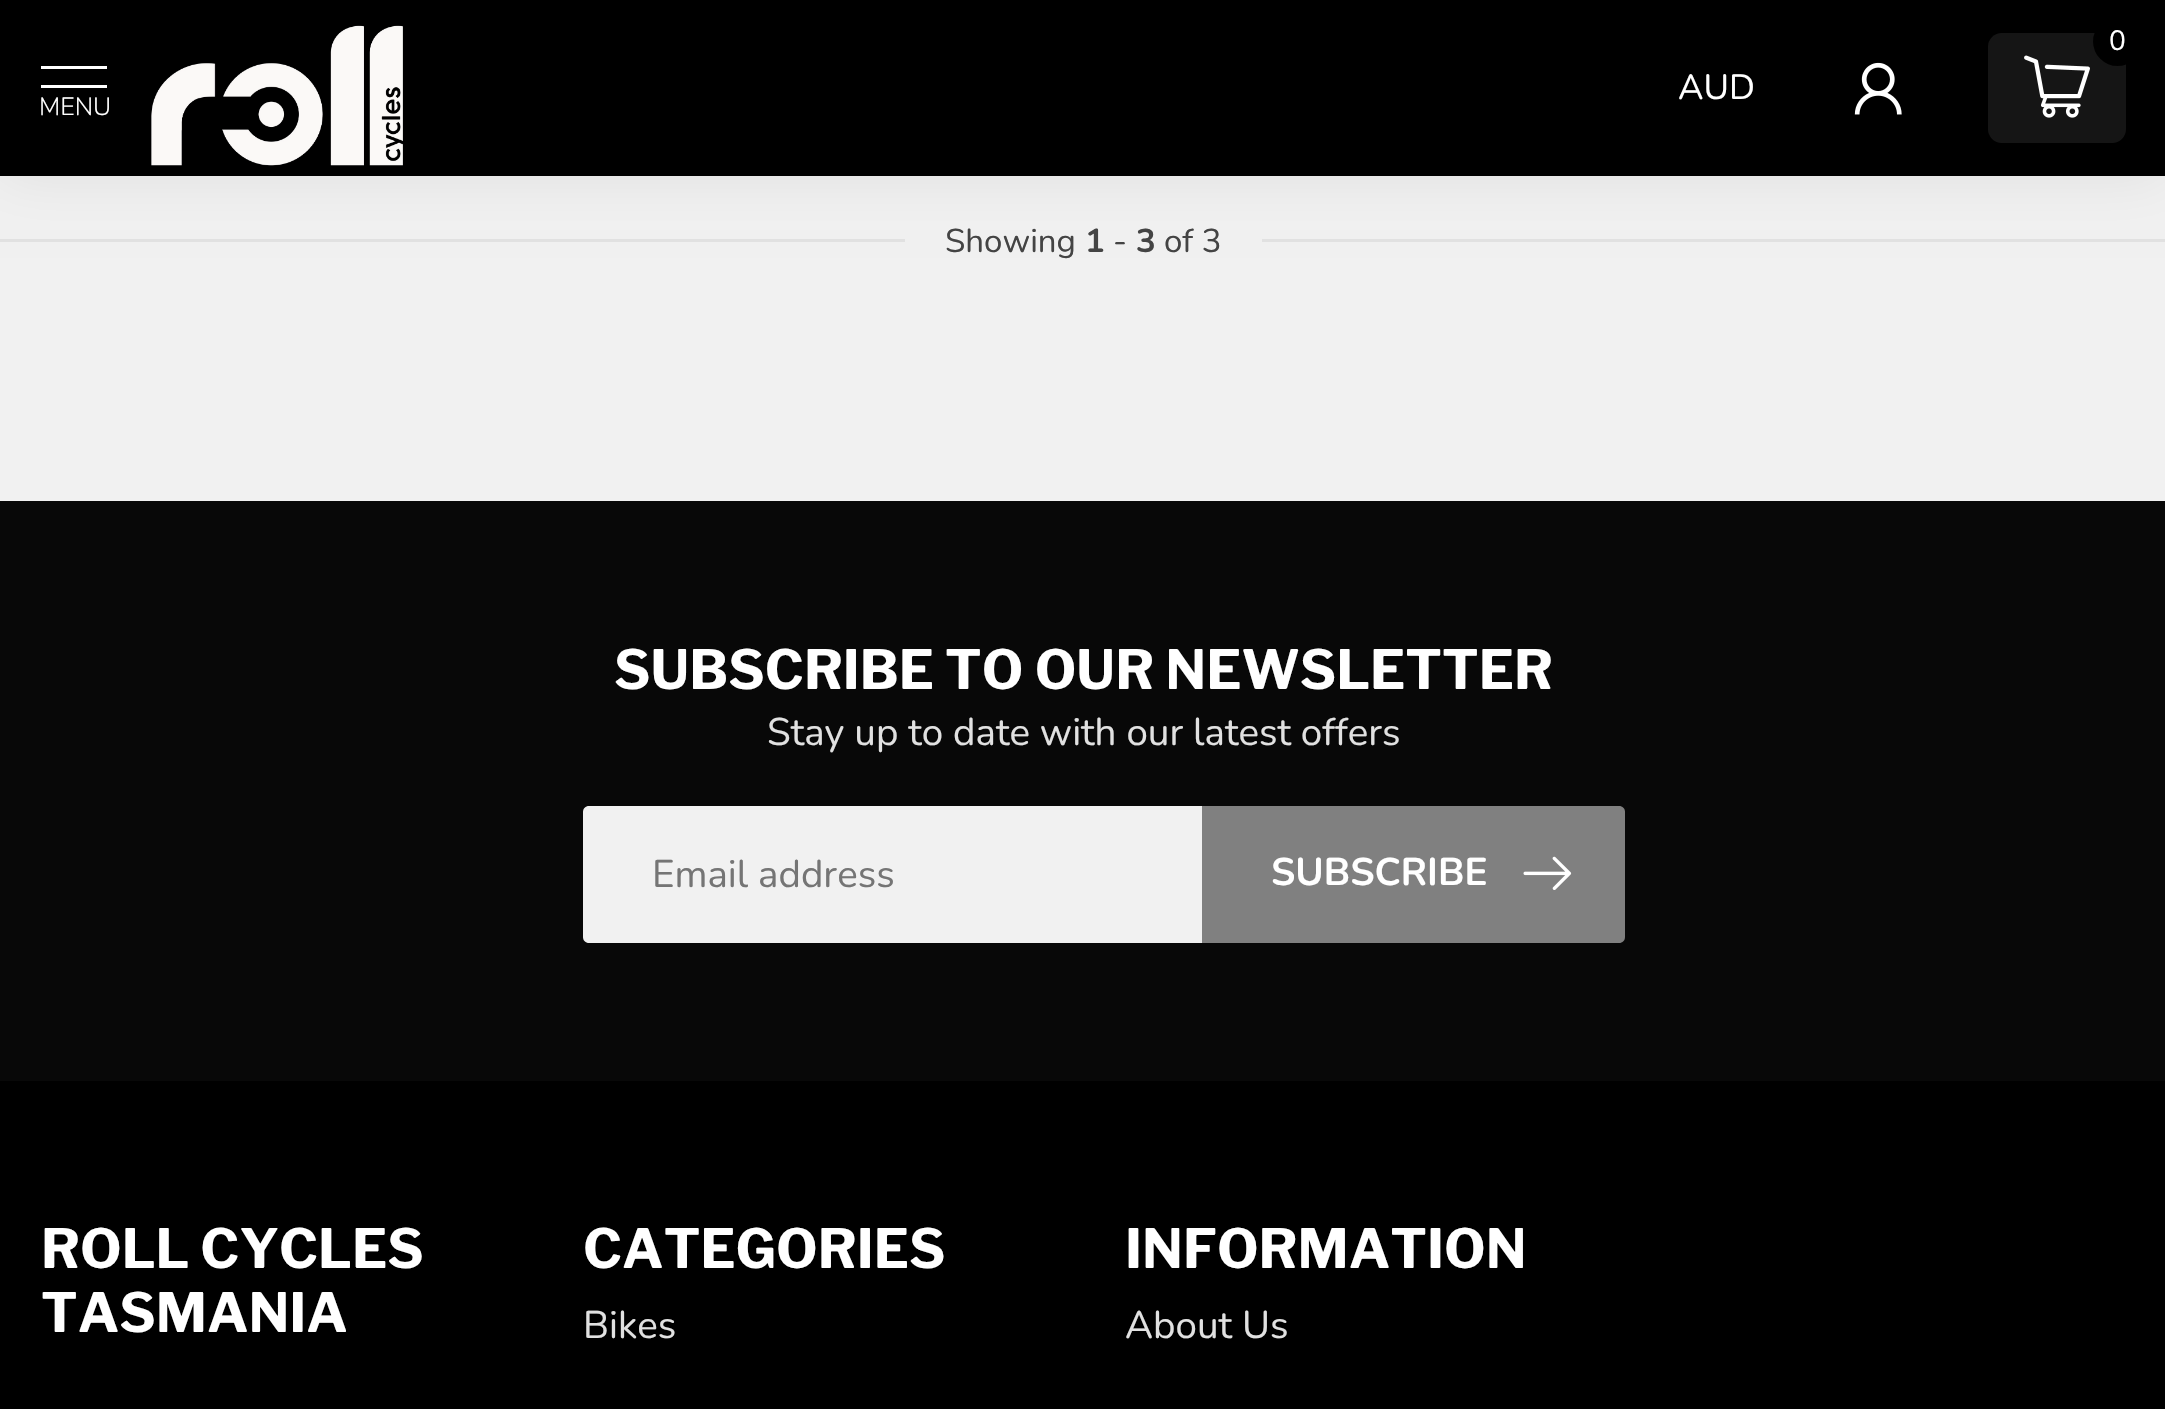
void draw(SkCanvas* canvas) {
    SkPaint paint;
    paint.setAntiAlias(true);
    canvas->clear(0xFFF1F1F1);
    paint.setColor(0xFFE2E2E2);
    canvas->drawRect(SkRect::MakeXYWH(0, 239, 2165, 3), paint);
    paint.setColor(0xFFF1F1F1);
    canvas->drawRect(SkRect::MakeXYWH(905, 239, 357, 3), paint);
    paint.setColor(0x12000000);
    paint.setMaskFilter(SkMaskFilter::MakeBlur(kNormal_SkBlurStyle, 27.5f));
    canvas->drawRect(SkRect::MakeXYWH(0, -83, 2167, 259), paint);
    paint.setMaskFilter(nullptr);
    paint.setColor(0xFF000000);
    canvas->drawRect(SkRect::MakeXYWH(0, 0, 2165, 176), paint);
    paint.setColor(0xFF151515);
    canvas->drawRoundRect(SkRect::MakeXYWH(1988, 33, 138, 110), 14, 14, paint);
    paint.setColor(0xFF000000);
    canvas->drawCircle(2117.5f, 41.5f, 24.5f, paint);
    SkFont font1(fontMgr->matchFamilyStyle("Nunito", SkFontStyle::Normal()), 28);
    font1.setSubpixel(true);
    paint.setColor(0xFFFFFFFF);
    canvas->drawString("0", 2109, 50, font1, paint);
    canvas->drawImageRect(SkImages::DeferredFromEncodedData(SkData::MakeFromFileName("img1.png")), SkRect::MakeXYWH(2024, 55, 66, 63), SkSamplingOptions());
    SkFont font2(fontMgr->matchFamilyStyle("Nunito", SkFontStyle::Normal()), 35);
    font2.setSubpixel(true);
    canvas->drawString("AUD", 1678, 99, font2, paint);
    canvas->drawImageRect(SkImages::DeferredFromEncodedData(SkData::MakeFromFileName("img2.png")), SkRect::MakeXYWH(1854, 62, 48, 53), SkSamplingOptions());
    canvas->drawRect(SkRect::MakeXYWH(41, 66, 66, 3), paint);
    canvas->drawRect(SkRect::MakeXYWH(41, 85, 66, 3), paint);
    SkFont font3(fontMgr->matchFamilyStyle("Nunito", SkFontStyle(300, SkFontStyle::kNormal_Width, SkFontStyle::kUpright_Slant)), 25);
    font3.setSubpixel(true);
    canvas->drawString("MENU", 39, 115, font3, paint);
    canvas->drawImageRect(SkImages::DeferredFromEncodedData(SkData::MakeFromFileName("img3.png")), SkRect::MakeXYWH(151, 25, 252, 141), SkSamplingOptions());
    SkFont font4(fontMgr->matchFamilyStyle("Nunito", SkFontStyle::Normal()), 33);
    font4.setSubpixel(true);
    paint.setColor(0xFF444444);
    canvas->drawString("Showing", 945, 252, font4, paint);
    SkFont font5(fontMgr->matchFamilyStyle("Nunito", SkFontStyle::Bold()), 33);
    font5.setSubpixel(true);
    canvas->drawString("1", 1085, 252, font5, paint);
    canvas->drawString("3", 1136, 252, font5, paint);
    canvas->drawString("of 3", 1164, 252, font4, paint);
    canvas->drawString("-", 1113, 252, font4, paint);
    paint.setColor(0xFF000000);
    canvas->drawRect(SkRect::MakeXYWH(0, 1081, 2165, 328), paint);
    paint.setColor(0xFF080808);
    canvas->drawRect(SkRect::MakeXYWH(0, 501, 2165, 580), paint);
    SkFont font6(fontMgr->matchFamilyStyle("Libre Franklin", SkFontStyle::Bold()), 53.9f);
    font6.setSubpixel(true);
    paint.setColor(0xFFFFFFFF);
    canvas->drawString("SUBSCRIBE TO OUR NEWSLETTER", 614, 689, font6, paint);
    SkFont font7(fontMgr->matchFamilyStyle("Nunito", SkFontStyle::Normal()), 38.5f);
    font7.setSubpixel(true);
    paint.setColor(0xFFE1E1E1);
    canvas->drawString("Stay up to date with our latest offers", 767, 745, font7, paint);
    paint.setColor(0xFFF1F1F1);
    canvas->drawPath(SkPathBuilder().moveTo(589, 806).lineTo(1202, 806).lineTo(1202, 943).lineTo(589, 943).cubicTo(585.5f, 943, 583, 940.5f, 583, 937).lineTo(583, 812).cubicTo(583, 808.5f, 585.5f, 806, 589, 806).close().detach(), paint);
    paint.setColor(0xFF757575);
    canvas->drawString("Email address", 652, 887, font7, paint);
    paint.setColor(0xFF808080);
    canvas->drawPath(SkPathBuilder().moveTo(1202, 806).lineTo(1619, 806).cubicTo(1622.5f, 806, 1625, 808.5f, 1625, 812).lineTo(1625, 937).cubicTo(1625, 940.5f, 1622.5f, 943, 1619, 943).lineTo(1202, 943).close().detach(), paint);
    SkFont font8(fontMgr->matchFamilyStyle("Nunito", SkFontStyle::Bold()), 38.5f);
    font8.setSubpixel(true);
    paint.setColor(0xFFFFFFFF);
    canvas->drawString("SUBSCRIBE", 1271, 885, font8, paint);
    canvas->drawImageRect(SkImages::DeferredFromEncodedData(SkData::MakeFromFileName("img4.png")), SkRect::MakeXYWH(1523, 856, 49, 34), SkSamplingOptions());
    canvas->drawString("ROLL CYCLES", 41, 1268, font6, paint);
    canvas->drawString("TASMANIA", 41, 1332, font6, paint);
    canvas->drawString("CATEGORIES", 583, 1268, font6, paint);
    paint.setColor(0xFFE1E1E1);
    canvas->drawString("Bikes", 583, 1338, font7, paint);
    paint.setColor(0xFFFFFFFF);
    canvas->drawString("INFORMATION", 1125, 1268, font6, paint);
    paint.setColor(0xFFE1E1E1);
    canvas->drawString("About Us", 1125, 1338, font7, paint);
}
